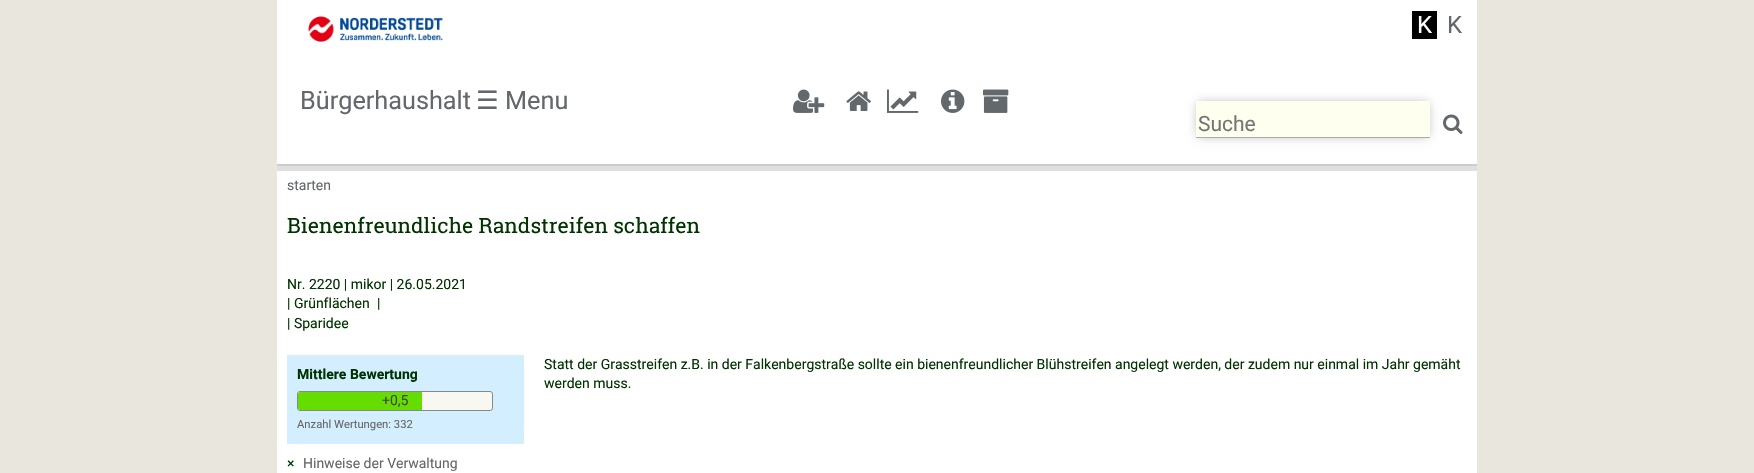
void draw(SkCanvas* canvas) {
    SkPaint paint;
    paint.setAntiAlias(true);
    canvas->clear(0xFFE9E6DE);
    paint.setColor(0xFFFFFFFF);
    canvas->drawRect(SkRect::MakeXYWH(277, 0, 1200, 473), paint);
    canvas->drawImageRect(SkImages::DeferredFromEncodedData(SkData::MakeFromFileName("img1.png")), SkRect::MakeXYWH(308, 16, 135, 26), SkSamplingOptions());
    paint.setColor(0xFF000000);
    canvas->drawRect(SkRect::MakeXYWH(1412, 11, 25, 28), paint);
    SkFont font1(fontMgr->matchFamilyStyle("Roboto", SkFontStyle::Normal()), 24);
    font1.setSubpixel(true);
    paint.setColor(0xFFFFFFFF);
    canvas->drawString("K", 1417, 33, font1, paint);
    paint.setColor(0xFF63686D);
    canvas->drawString("K", 1447, 33, font1, paint);
    paint.setColor(0xFFDFDFDF);
    canvas->drawRect(SkRect::MakeXYWH(277, 166, 1200, 5), paint);
    paint.setColor(0xFFCCCCCC);
    canvas->drawRect(SkRect::MakeXYWH(277, 164, 1200, 2), paint);
    SkFont font2(fontMgr->matchFamilyStyle("Roboto", SkFontStyle::Normal()), 25.25f);
    font2.setSubpixel(true);
    paint.setColor(0xFF63686D);
    canvas->drawString("Bürgerhaushalt", 300, 109, font2, paint);
    SkFont font3(fontMgr->matchFamilyStyle("DejaVu Sans", SkFontStyle::Normal()), 25.25f);
    font3.setSubpixel(true);
    canvas->drawString("☰", 476, 109, font3, paint);
    canvas->drawString("Menu", 505, 109, font2, paint);
    canvas->drawImageRect(SkImages::DeferredFromEncodedData(SkData::MakeFromFileName("img2.png")), SkRect::MakeXYWH(793, 89, 32, 24), SkSamplingOptions());
    canvas->drawImageRect(SkImages::DeferredFromEncodedData(SkData::MakeFromFileName("img3.png")), SkRect::MakeXYWH(846, 91, 25, 20), SkSamplingOptions());
    canvas->drawImageRect(SkImages::DeferredFromEncodedData(SkData::MakeFromFileName("img4.png")), SkRect::MakeXYWH(887, 89, 32, 24), SkSamplingOptions());
    canvas->drawImageRect(SkImages::DeferredFromEncodedData(SkData::MakeFromFileName("img5.png")), SkRect::MakeXYWH(941, 89, 24, 24), SkSamplingOptions());
    canvas->drawImageRect(SkImages::DeferredFromEncodedData(SkData::MakeFromFileName("img6.png")), SkRect::MakeXYWH(983, 89, 26, 24), SkSamplingOptions());
    canvas->drawImageRect(SkImages::DeferredFromEncodedData(SkData::MakeFromFileName("img7.png")), SkRect::MakeXYWH(1443, 114, 20, 20), SkSamplingOptions());
    paint.setColor(0x4D000000);
    paint.setMaskFilter(SkMaskFilter::MakeBlur(kNormal_SkBlurStyle, 5));
    canvas->drawRect(SkRect::MakeXYWH(1198, 103, 230, 33), paint);
    paint.setMaskFilter(nullptr);
    paint.setColor(0xFFFEFFEF);
    canvas->drawRect(SkRect::MakeXYWH(1196, 101, 234, 36), paint);
    paint.setColor(0xFFABABAB);
    canvas->drawRect(SkRect::MakeXYWH(1196, 137, 234, 1), paint);
    SkFont font4(fontMgr->matchFamilyStyle("Roboto", SkFontStyle::Normal()), 21);
    font4.setSubpixel(true);
    paint.setColor(0xFF757575);
    canvas->drawString("Suche", 1198, 131, font4, paint);
    SkFont font5(fontMgr->matchFamilyStyle("Roboto", SkFontStyle::Normal()), 14);
    font5.setSubpixel(true);
    paint.setColor(0xFF63686D);
    canvas->drawString("starten", 287, 190, font5, paint);
    SkFont font6(fontMgr->matchFamilyStyle("Roboto Slab", SkFontStyle::Normal()), 21);
    font6.setSubpixel(true);
    paint.setColor(0xFF003300);
    canvas->drawString("Bienenfreundliche Randstreifen schaffen", 287, 233, font6, paint);
    canvas->drawString("Nr. 2220 | mikor | 26.05.2021", 287, 289, font5, paint);
    canvas->drawString("| Grünflächen", 287, 308, font5, paint);
    canvas->drawString("|", 377, 308, font5, paint);
    canvas->drawString("| Sparidee", 287, 328, font5, paint);
    paint.setColor(0xFFD3EEFE);
    canvas->drawRect(SkRect::MakeXYWH(287, 355, 237, 89), paint);
    SkFont font7(fontMgr->matchFamilyStyle("Roboto", SkFontStyle::Bold()), 14);
    font7.setSubpixel(true);
    paint.setColor(0xFF003300);
    canvas->drawString("Mittlere Bewertung", 297, 379, font7, paint);
    paint.setColor(0xFFF8F8F0);
    canvas->drawRoundRect(SkRect::MakeXYWH(297.5f, 391.5f, 195, 19), 2.5f, 2.5f, paint);
    paint.setStyle(SkPaint::kStroke_Style);
    paint.setStrokeWidth(1);
    paint.setColor(0xFF888888);
    canvas->drawRoundRect(SkRect::MakeXYWH(297.5f, 391.5f, 195, 19), 2.5f, 2.5f, paint);
    paint.setStyle(SkPaint::kFill_Style);
    paint.setColor(0xFF66DD00);
    canvas->drawPath(SkPathBuilder().moveTo(300, 392).lineTo(422, 392).lineTo(422, 410).lineTo(300, 410).cubicTo(299, 410, 298, 409, 298, 408).lineTo(298, 394).cubicTo(298, 393, 299, 392, 300, 392).close().detach(), paint);
    paint.setColor(0xFF444444);
    canvas->drawString("+0,5", 382, 405, font5, paint);
    SkFont font8(fontMgr->matchFamilyStyle("Roboto", SkFontStyle::Normal()), 11.25f);
    font8.setSubpixel(true);
    paint.setColor(0xFF666666);
    canvas->drawString("Anzahl Wertungen: 332", 297, 428, font8, paint);
    paint.setColor(0xFF003300);
    canvas->drawString("Statt der Grasstreifen z.B. in der Falkenbergstraße sollte ein bienenfreundlicher Blühstreifen angelegt werden, der zudem nur einmal im Jahr gemäht", 544, 369, font5, paint);
    canvas->drawString("werden muss.", 544, 388, font5, paint);
    canvas->drawString("×", 287, 468, font5, paint);
    paint.setColor(0xFF63686D);
    canvas->drawString("Hinweise der Verwaltung", 303, 468, font5, paint);
}
